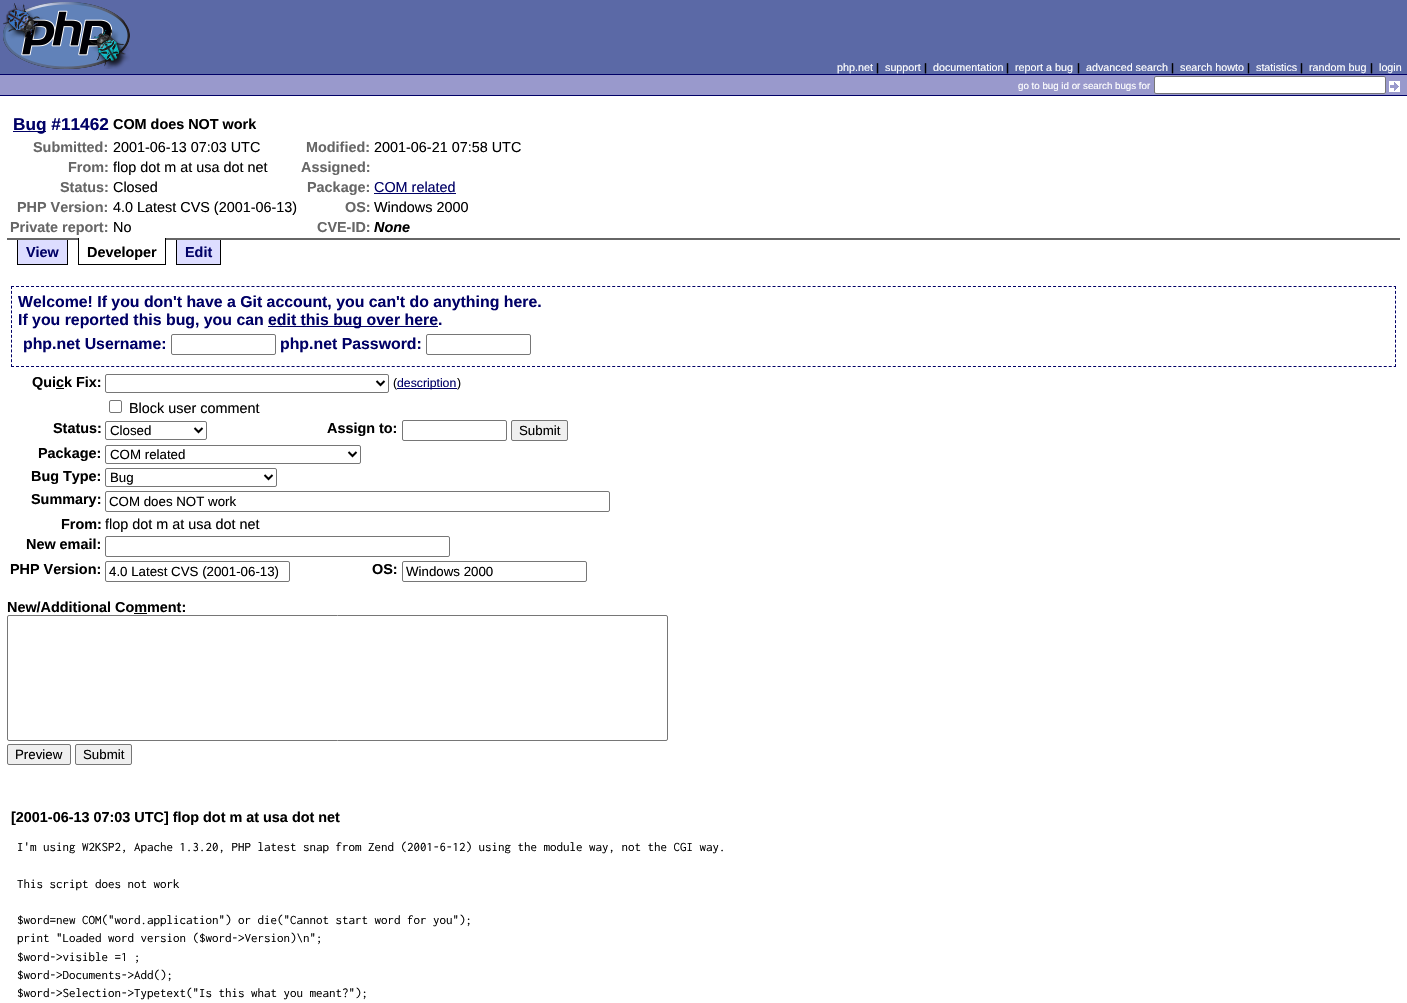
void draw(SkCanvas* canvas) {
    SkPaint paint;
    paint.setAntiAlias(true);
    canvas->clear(0xFFFFFFFF);
    paint.setColor(0xFF5B69A6);
    canvas->drawRect(SkRect::MakeXYWH(0, 0, 1407, 74), paint);
    canvas->drawImageRect(SkImages::DeferredFromEncodedData(SkData::MakeFromFileName("img1.png")), SkRect::MakeXYWH(3, 2, 127, 67), SkSamplingOptions());
    SkFont font1(fontMgr->matchFamilyStyle("Liberation Sans", SkFontStyle::Normal()), 10.75f);
    font1.setSubpixel(true);
    paint.setColor(0xFFFFFFFF);
    canvas->drawString("php.net", 837, 71, font1, paint);
    SkFont font2(fontMgr->matchFamilyStyle("Liberation Sans", SkFontStyle::Bold()), 10.75f);
    font2.setSubpixel(true);
    paint.setColor(0xFF000000);
    canvas->drawString("|", 876, 71, font2, paint);
    paint.setColor(0xFFFFFFFF);
    canvas->drawString("support", 885, 71, font1, paint);
    paint.setColor(0xFF000000);
    canvas->drawString("|", 924, 71, font2, paint);
    paint.setColor(0xFFFFFFFF);
    canvas->drawString("documentation", 933, 71, font1, paint);
    paint.setColor(0xFF000000);
    canvas->drawString("|", 1006, 71, font2, paint);
    paint.setColor(0xFFFFFFFF);
    canvas->drawString("report a bug", 1015, 71, font1, paint);
    paint.setColor(0xFF000000);
    canvas->drawString("|", 1077, 71, font2, paint);
    paint.setColor(0xFFFFFFFF);
    canvas->drawString("advanced search", 1086, 71, font1, paint);
    paint.setColor(0xFF000000);
    canvas->drawString("|", 1171, 71, font2, paint);
    paint.setColor(0xFFFFFFFF);
    canvas->drawString("search howto", 1180, 71, font1, paint);
    paint.setColor(0xFF000000);
    canvas->drawString("|", 1247, 71, font2, paint);
    paint.setColor(0xFFFFFFFF);
    canvas->drawString("statistics", 1256, 71, font1, paint);
    paint.setColor(0xFF000000);
    canvas->drawString("|", 1300, 71, font2, paint);
    paint.setColor(0xFFFFFFFF);
    canvas->drawString("random bug", 1309, 71, font1, paint);
    paint.setColor(0xFF000000);
    canvas->drawString("|", 1370, 71, font2, paint);
    paint.setColor(0xFFFFFFFF);
    canvas->drawString("login", 1379, 71, font1, paint);
    paint.setColor(0xFF9999CC);
    canvas->drawRect(SkRect::MakeXYWH(0, 75, 1407, 20), paint);
    paint.setColor(0xFF000066);
    canvas->drawRect(SkRect::MakeXYWH(0, 74, 1407, 1), paint);
    canvas->drawRect(SkRect::MakeXYWH(0, 95, 1407, 1), paint);
    SkFont font3(fontMgr->matchFamilyStyle("Liberation Sans", SkFontStyle::Normal()), 9.75f);
    font3.setSubpixel(true);
    paint.setColor(0xFFFFFFFF);
    canvas->drawString("go to bug id or search bugs for", 1018, 89, font3, paint);
    canvas->drawRoundRect(SkRect::MakeXYWH(1154.5f, 76.5f, 231, 17), 1.5f, 1.5f, paint);
    paint.setStyle(SkPaint::kStroke_Style);
    paint.setStrokeWidth(1);
    paint.setColor(0xFF767676);
    canvas->drawRoundRect(SkRect::MakeXYWH(1154.5f, 76.5f, 231, 17), 1.5f, 1.5f, paint);
    canvas->drawImageRect(SkImages::DeferredFromEncodedData(SkData::MakeFromFileName("img2.png")), SkRect::MakeXYWH(1389, 81, 11, 11), SkSamplingOptions());
    paint.setStyle(SkPaint::kFill_Style);
    paint.setColor(0xFF666666);
    canvas->drawRect(SkRect::MakeXYWH(7, 238, 1393, 2), paint);
    paint.setColor(0xFF000066);
    canvas->drawRect(SkRect::MakeXYWH(13, 131, 33, 1), paint);
    SkFont font4(fontMgr->matchFamilyStyle("Liberation Sans", SkFontStyle::Bold()), 17.25f);
    font4.setSubpixel(true);
    canvas->drawString("Bug #11462", 13, 130, font4, paint);
    SkFont font5(fontMgr->matchFamilyStyle("Liberation Sans", SkFontStyle::Bold()), 14.4f);
    font5.setSubpixel(true);
    paint.setColor(0xFF000000);
    canvas->drawString("COM does NOT work", 113, 129, font5, paint);
    paint.setColor(0xFF666666);
    canvas->drawString("Submitted:", 33, 152, font5, paint);
    SkFont font6(fontMgr->matchFamilyStyle("Liberation Sans", SkFontStyle::Normal()), 14.4f);
    font6.setSubpixel(true);
    paint.setColor(0xFF000000);
    canvas->drawString("2001-06-13 07:03 UTC", 113, 152, font6, paint);
    paint.setColor(0xFF666666);
    canvas->drawString("Modified:", 306, 152, font5, paint);
    paint.setColor(0xFF000000);
    canvas->drawString("2001-06-21 07:58 UTC", 374, 152, font6, paint);
    paint.setColor(0xFF666666);
    canvas->drawString("From:", 68, 172, font5, paint);
    paint.setColor(0xFF000000);
    canvas->drawString("flop dot m at usa dot net", 113, 172, font6, paint);
    paint.setColor(0xFF666666);
    canvas->drawString("Assigned:", 301, 172, font5, paint);
    canvas->drawString("Status:", 60, 192, font5, paint);
    paint.setColor(0xFF000000);
    canvas->drawString("Closed", 113, 192, font6, paint);
    paint.setColor(0xFF666666);
    canvas->drawString("Package:", 307, 192, font5, paint);
    paint.setColor(0xFF000066);
    canvas->drawString("COM related", 374, 192, font6, paint);
    canvas->drawRect(SkRect::MakeXYWH(374, 193, 82, 1), paint);
    paint.setColor(0xFF666666);
    canvas->drawString("PHP Version:", 17, 212, font5, paint);
    paint.setColor(0xFF000000);
    canvas->drawString("4.0 Latest CVS (2001-06-13)", 113, 212, font6, paint);
    paint.setColor(0xFF666666);
    canvas->drawString("OS:", 345, 212, font5, paint);
    paint.setColor(0xFF000000);
    canvas->drawString("Windows 2000", 374, 212, font6, paint);
    paint.setColor(0xFF666666);
    canvas->drawString("Private report:", 10, 232, font5, paint);
    paint.setColor(0xFF000000);
    canvas->drawString("No", 113, 232, font6, paint);
    paint.setColor(0xFF666666);
    canvas->drawString("CVE-ID:", 317, 232, font5, paint);
    SkFont font7(fontMgr->matchFamilyStyle("Liberation Sans", SkFontStyle::BoldItalic()), 14.4f);
    font7.setSubpixel(true);
    paint.setColor(0xFF000000);
    canvas->drawString("None", 374, 232, font7, paint);
    paint.setColor(0xFFDDDDFF);
    canvas->drawRect(SkRect::MakeXYWH(18, 240, 49, 24), paint);
    paint.setColor(0xFF000000);
    canvas->drawRect(SkRect::MakeXYWH(67, 240, 1, 25), paint);
    canvas->drawRect(SkRect::MakeXYWH(17, 264, 51, 1), paint);
    canvas->drawRect(SkRect::MakeXYWH(17, 240, 1, 25), paint);
    paint.setColor(0xFF000066);
    canvas->drawString("View", 26, 257, font5, paint);
    paint.setColor(0xFFFFFFFF);
    canvas->drawRect(SkRect::MakeXYWH(79, 238, 86, 2), paint);
    paint.setColor(0xFF000000);
    canvas->drawRect(SkRect::MakeXYWH(165, 238, 1, 27), paint);
    canvas->drawRect(SkRect::MakeXYWH(78, 264, 88, 1), paint);
    canvas->drawRect(SkRect::MakeXYWH(78, 238, 1, 27), paint);
    canvas->drawString("Developer", 87, 257, font5, paint);
    paint.setColor(0xFFDDDDFF);
    canvas->drawRect(SkRect::MakeXYWH(177, 240, 43, 24), paint);
    paint.setColor(0xFF000000);
    canvas->drawRect(SkRect::MakeXYWH(220, 240, 1, 25), paint);
    canvas->drawRect(SkRect::MakeXYWH(176, 264, 45, 1), paint);
    canvas->drawRect(SkRect::MakeXYWH(176, 240, 1, 25), paint);
    paint.setColor(0xFF000066);
    canvas->drawString("Edit", 185, 257, font5, paint);
    paint.setStyle(SkPaint::kStroke_Style);
    paint.setPathEffect(SkDashPathEffect::Make({{3, 2.01f}}, 0));
    canvas->drawPath(SkPathBuilder().moveTo(11, 286.5f).lineTo(1396, 286.5f).detach(), paint);
    paint.setPathEffect(nullptr);
    paint.setPathEffect(SkDashPathEffect::Make({{3, 1.88f}}, 0));
    canvas->drawPath(SkPathBuilder().moveTo(1395.5f, 286).lineTo(1395.5f, 367).detach(), paint);
    paint.setPathEffect(nullptr);
    paint.setPathEffect(SkDashPathEffect::Make({{3, 2.01f}}, 0));
    canvas->drawPath(SkPathBuilder().moveTo(11, 366.5f).lineTo(1396, 366.5f).detach(), paint);
    paint.setPathEffect(nullptr);
    paint.setPathEffect(SkDashPathEffect::Make({{3, 1.88f}}, 0));
    canvas->drawPath(SkPathBuilder().moveTo(11.5f, 286).lineTo(11.5f, 367).detach(), paint);
    paint.setPathEffect(nullptr);
    SkFont font8(fontMgr->matchFamilyStyle("Liberation Sans", SkFontStyle::Bold()), 15.85f);
    font8.setSubpixel(true);
    paint.setStyle(SkPaint::kFill_Style);
    canvas->drawString("Welcome! If you don't have a Git account, you can't do anything here.", 18, 307, font8, paint);
    canvas->drawString("If you reported this bug, you can", 18, 325, font8, paint);
    canvas->drawRect(SkRect::MakeXYWH(268, 326, 170, 1), paint);
    canvas->drawString("edit this bug over here.", 268, 325, font8, paint);
    canvas->drawString("php.net Username:", 23, 349, font8, paint);
    paint.setStyle(SkPaint::kStroke_Style);
    paint.setColor(0xFF767676);
    canvas->drawRoundRect(SkRect::MakeXYWH(171.5f, 334.5f, 104, 20), 1.5f, 1.5f, paint);
    paint.setStyle(SkPaint::kFill_Style);
    paint.setColor(0xFF000066);
    canvas->drawString("php.net Password:", 280, 349, font8, paint);
    paint.setStyle(SkPaint::kStroke_Style);
    paint.setColor(0xFF767676);
    canvas->drawRoundRect(SkRect::MakeXYWH(426.5f, 334.5f, 104, 20), 1.5f, 1.5f, paint);
    paint.setStyle(SkPaint::kFill_Style);
    paint.setColor(0xFF000000);
    canvas->drawString("Quick Fix:", 32, 387, font5, paint);
    canvas->drawRect(SkRect::MakeXYWH(56, 388, 8, 1), paint);
    paint.setStyle(SkPaint::kStroke_Style);
    paint.setColor(0xFF767676);
    canvas->drawRoundRect(SkRect::MakeXYWH(105.5f, 374.5f, 283, 18), 1.5f, 1.5f, paint);
    paint.setStrokeWidth(2);
    paint.setColor(0xFF000000);
    canvas->drawPath(SkPathBuilder().moveTo(376.5f, 381).lineTo(380.5f, 385).lineTo(384.5f, 381).detach(), paint);
    SkFont font9(fontMgr->matchFamilyStyle("Liberation Sans", SkFontStyle::Normal()), 12.25f);
    font9.setSubpixel(true);
    paint.setStyle(SkPaint::kFill_Style);
    canvas->drawString("(", 393, 387, font9, paint);
    paint.setColor(0xFF000066);
    canvas->drawRect(SkRect::MakeXYWH(397, 388, 60, 1), paint);
    canvas->drawString("description", 397, 387, font9, paint);
    paint.setColor(0xFF000000);
    canvas->drawString(")", 457, 387, font9, paint);
    paint.setStyle(SkPaint::kStroke_Style);
    paint.setStrokeWidth(1);
    paint.setColor(0xFF767676);
    canvas->drawRoundRect(SkRect::MakeXYWH(109.5f, 400.5f, 12, 12), 1.5f, 1.5f, paint);
    paint.setStyle(SkPaint::kFill_Style);
    paint.setColor(0xFF000000);
    canvas->drawString("Block user comment", 129, 413, font6, paint);
    canvas->drawString("Status:", 53, 433, font5, paint);
    paint.setStyle(SkPaint::kStroke_Style);
    paint.setColor(0xFF767676);
    canvas->drawRoundRect(SkRect::MakeXYWH(105.5f, 421.5f, 101, 18), 1.5f, 1.5f, paint);
    paint.setStrokeWidth(2);
    paint.setColor(0xFF000000);
    canvas->drawPath(SkPathBuilder().moveTo(194.5f, 428).lineTo(198.5f, 432).lineTo(202.5f, 428).detach(), paint);
    SkFont font10(fontMgr->matchFamilyStyle("Liberation Sans", SkFontStyle::Normal()), 13.3f);
    font10.setSubpixel(true);
    paint.setStyle(SkPaint::kFill_Style);
    canvas->drawString("Closed", 110, 435, font10, paint);
    canvas->drawString("Assign to:", 327, 433, font5, paint);
    paint.setStyle(SkPaint::kStroke_Style);
    paint.setStrokeWidth(1);
    paint.setColor(0xFF767676);
    canvas->drawRoundRect(SkRect::MakeXYWH(402.5f, 420.5f, 104, 20), 1.5f, 1.5f, paint);
    paint.setStyle(SkPaint::kFill_Style);
    paint.setColor(0xFFEFEFEF);
    canvas->drawRoundRect(SkRect::MakeXYWH(511.5f, 420.5f, 56, 20), 1.5f, 1.5f, paint);
    paint.setStyle(SkPaint::kStroke_Style);
    paint.setColor(0xFF767676);
    canvas->drawRoundRect(SkRect::MakeXYWH(511.5f, 420.5f, 56, 20), 1.5f, 1.5f, paint);
    paint.setStyle(SkPaint::kFill_Style);
    paint.setColor(0xFF000000);
    canvas->drawString("Submit", 519, 435, font10, paint);
    canvas->drawString("Package:", 38, 458, font5, paint);
    paint.setStyle(SkPaint::kStroke_Style);
    paint.setColor(0xFF767676);
    canvas->drawRoundRect(SkRect::MakeXYWH(105.5f, 445.5f, 255, 18), 1.5f, 1.5f, paint);
    paint.setStrokeWidth(2);
    paint.setColor(0xFF000000);
    canvas->drawPath(SkPathBuilder().moveTo(348.5f, 452).lineTo(352.5f, 456).lineTo(356.5f, 452).detach(), paint);
    paint.setStyle(SkPaint::kFill_Style);
    canvas->drawString("COM related", 110, 459, font10, paint);
    canvas->drawString("Bug Type:", 31, 481, font5, paint);
    paint.setStyle(SkPaint::kStroke_Style);
    paint.setStrokeWidth(1);
    paint.setColor(0xFF767676);
    canvas->drawRoundRect(SkRect::MakeXYWH(105.5f, 468.5f, 171, 18), 1.5f, 1.5f, paint);
    paint.setStrokeWidth(2);
    paint.setColor(0xFF000000);
    canvas->drawPath(SkPathBuilder().moveTo(264.5f, 475).lineTo(268.5f, 479).lineTo(272.5f, 475).detach(), paint);
    paint.setStyle(SkPaint::kFill_Style);
    canvas->drawString("Bug", 110, 482, font10, paint);
    canvas->drawString("Summary:", 31, 504, font5, paint);
    paint.setStyle(SkPaint::kStroke_Style);
    paint.setStrokeWidth(1);
    paint.setColor(0xFF767676);
    canvas->drawRoundRect(SkRect::MakeXYWH(105.5f, 491.5f, 504, 20), 1.5f, 1.5f, paint);
    paint.setStyle(SkPaint::kFill_Style);
    paint.setColor(0xFF000000);
    canvas->drawString("COM does NOT work", 109, 506, font10, paint);
    canvas->drawString("From:", 61, 529, font5, paint);
    canvas->drawString("flop dot m at usa dot net", 105, 529, font6, paint);
    canvas->drawString("New email:", 26, 549, font5, paint);
    paint.setStyle(SkPaint::kStroke_Style);
    paint.setColor(0xFF767676);
    canvas->drawRoundRect(SkRect::MakeXYWH(105.5f, 536.5f, 344, 20), 1.5f, 1.5f, paint);
    paint.setStyle(SkPaint::kFill_Style);
    paint.setColor(0xFF000000);
    canvas->drawString("PHP Version:", 10, 574, font5, paint);
    paint.setStyle(SkPaint::kStroke_Style);
    paint.setColor(0xFF767676);
    canvas->drawRoundRect(SkRect::MakeXYWH(105.5f, 561.5f, 184, 20), 1.5f, 1.5f, paint);
    paint.setStyle(SkPaint::kFill_Style);
    paint.setColor(0xFF000000);
    canvas->drawString("4.0 Latest CVS (2001-06-13)", 109, 576, font10, paint);
    canvas->drawString("OS:", 372, 574, font5, paint);
    paint.setStyle(SkPaint::kStroke_Style);
    paint.setColor(0xFF767676);
    canvas->drawRoundRect(SkRect::MakeXYWH(402.5f, 561.5f, 184, 20), 1.5f, 1.5f, paint);
    paint.setStyle(SkPaint::kFill_Style);
    paint.setColor(0xFF000000);
    canvas->drawString("Windows 2000", 406, 576, font10, paint);
    canvas->drawString("New/Additional Comment:", 7, 612, font5, paint);
    canvas->drawRect(SkRect::MakeXYWH(134, 613, 13, 1), paint);
    paint.setStyle(SkPaint::kStroke_Style);
    paint.setColor(0xFF767676);
    canvas->drawRoundRect(SkRect::MakeXYWH(7.5f, 615.5f, 660, 125), 1.5f, 1.5f, paint);
    paint.setStyle(SkPaint::kFill_Style);
    paint.setColor(0xFFEFEFEF);
    canvas->drawRoundRect(SkRect::MakeXYWH(7.5f, 744.5f, 63, 20), 1.5f, 1.5f, paint);
    paint.setStyle(SkPaint::kStroke_Style);
    paint.setColor(0xFF767676);
    canvas->drawRoundRect(SkRect::MakeXYWH(7.5f, 744.5f, 63, 20), 1.5f, 1.5f, paint);
    paint.setStyle(SkPaint::kFill_Style);
    paint.setColor(0xFF000000);
    canvas->drawString("Preview", 15, 759, font10, paint);
    paint.setColor(0xFFEFEFEF);
    canvas->drawRoundRect(SkRect::MakeXYWH(75.5f, 744.5f, 56, 20), 1.5f, 1.5f, paint);
    paint.setStyle(SkPaint::kStroke_Style);
    paint.setColor(0xFF767676);
    canvas->drawRoundRect(SkRect::MakeXYWH(75.5f, 744.5f, 56, 20), 1.5f, 1.5f, paint);
    paint.setStyle(SkPaint::kFill_Style);
    paint.setColor(0xFF000000);
    canvas->drawString("Submit", 83, 759, font10, paint);
    canvas->drawString("[2001-06-13 07:03 UTC] flop dot m at usa dot net", 11, 822, font5, paint);
    SkFont font11(fontMgr->matchFamilyStyle("Inconsolata", SkFontStyle::Normal()), 13);
    font11.setSubpixel(true);
    canvas->drawString("I'm using W2KSP2, Apache 1.3.20, PHP latest snap from Zend (2001-6-12) using the module way, not the CGI way.", 17, 851, font11, paint);
    canvas->drawString("This script does not work", 17, 888, font11, paint);
    canvas->drawString("$word=new COM(\"word.application\") or die(\"Cannot start word for you\");", 17, 924, font11, paint);
    canvas->drawString("print \"Loaded word version ($word->Version)\\n\";", 17, 942, font11, paint);
    canvas->drawString("$word->visible =1 ;", 17, 961, font11, paint);
    canvas->drawString("$word->Documents->Add();", 17, 979, font11, paint);
    canvas->drawString("$word->Selection->Typetext(\"Is this what you meant?\");", 17, 997, font11, paint);
}
